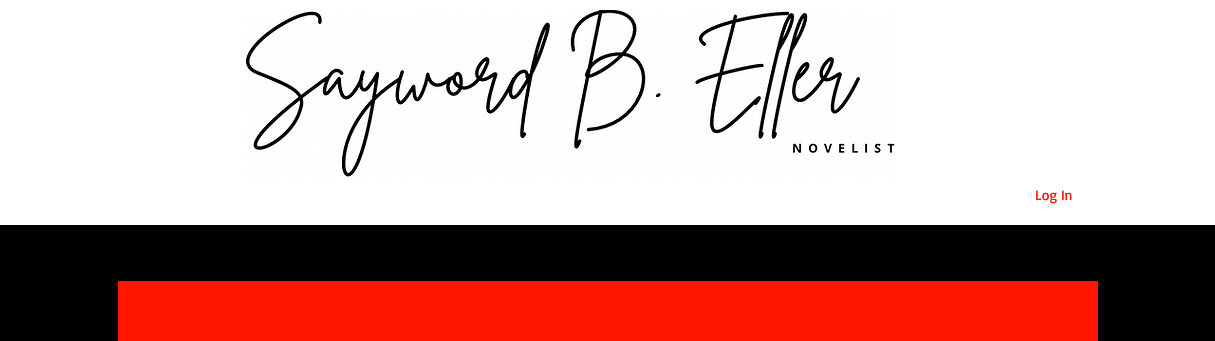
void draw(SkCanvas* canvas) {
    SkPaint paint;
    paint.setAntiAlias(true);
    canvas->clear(0xFF000000);
    paint.setColor(0xFFFFFFFF);
    canvas->drawRect(SkRect::MakeXYWH(0, 0, 1215, 225), paint);
    canvas->drawImageRect(SkImages::DeferredFromEncodedData(SkData::MakeFromFileName("img1.png")), SkRect::MakeXYWH(245, 10, 650, 169), SkSamplingOptions());
    SkFont font1(fontMgr->matchFamilyStyle("Basic", SkFontStyle::Normal()), 14);
    font1.setSubpixel(true);
    paint.setColor(0xFFFF1500);
    canvas->drawString("Log In", 1035, 200, font1, paint);
    canvas->drawRect(SkRect::MakeXYWH(118, 281, 980, 60), paint);
}
